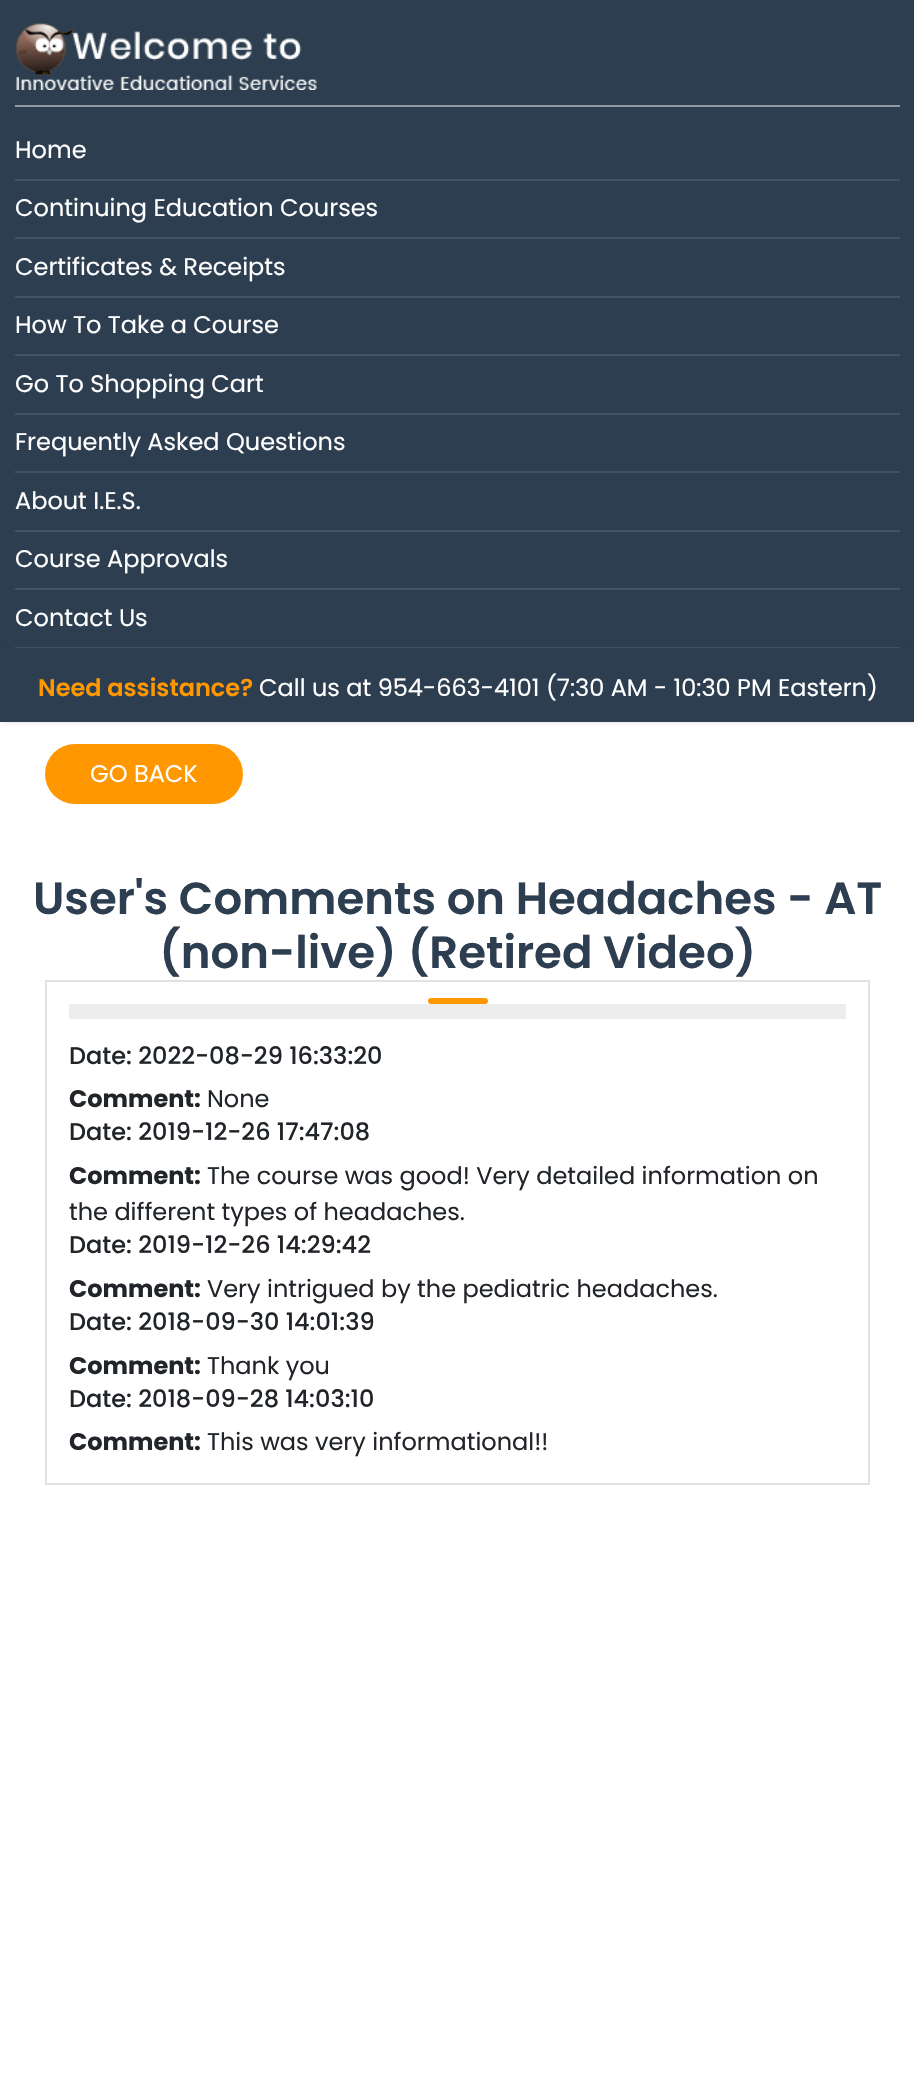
void draw(SkCanvas* canvas) {
    SkPaint paint;
    paint.setAntiAlias(true);
    canvas->clear(0xFFFFFFFF);
    paint.setColor(0xFF2D3E50);
    canvas->drawRect(SkRect::MakeXYWH(0, 0, 914, 648), paint);
    canvas->drawImageRect(SkImages::DeferredFromEncodedData(SkData::MakeFromFileName("img1.png")), SkRect::MakeXYWH(16, 23, 301, 67), SkSamplingOptions());
    paint.setColor(0xFF909BA7);
    canvas->drawRect(SkRect::MakeXYWH(15, 105, 885, 2), paint);
    paint.setColor(0xFF425365);
    canvas->drawRect(SkRect::MakeXYWH(15, 179, 885, 2), paint);
    SkFont font1(fontMgr->matchFamilyStyle("Poppins", SkFontStyle::Normal()), 24);
    font1.setSubpixel(true);
    paint.setColor(0xFFFFFFFF);
    canvas->drawString("Home", 15, 158, font1, paint);
    paint.setColor(0xFF425365);
    canvas->drawRect(SkRect::MakeXYWH(15, 237, 885, 2), paint);
    paint.setColor(0xFFFFFFFF);
    canvas->drawString("Continuing Education Courses", 15, 216, font1, paint);
    paint.setColor(0xFF425365);
    canvas->drawRect(SkRect::MakeXYWH(15, 296, 885, 2), paint);
    paint.setColor(0xFFFFFFFF);
    canvas->drawString("Certificates & Receipts", 15, 275, font1, paint);
    paint.setColor(0xFF425365);
    canvas->drawRect(SkRect::MakeXYWH(15, 354, 885, 2), paint);
    paint.setColor(0xFFFFFFFF);
    canvas->drawString("How To Take a Course", 15, 333, font1, paint);
    paint.setColor(0xFF425365);
    canvas->drawRect(SkRect::MakeXYWH(15, 413, 885, 2), paint);
    paint.setColor(0xFFFFFFFF);
    canvas->drawString("Go To Shopping Cart", 15, 392, font1, paint);
    paint.setColor(0xFF425365);
    canvas->drawRect(SkRect::MakeXYWH(15, 471, 885, 2), paint);
    paint.setColor(0xFFFFFFFF);
    canvas->drawString("Frequently Asked Questions", 15, 450, font1, paint);
    paint.setColor(0xFF425365);
    canvas->drawRect(SkRect::MakeXYWH(15, 530, 885, 2), paint);
    paint.setColor(0xFFFFFFFF);
    canvas->drawString("About I.E.S.", 15, 509, font1, paint);
    paint.setColor(0xFF425365);
    canvas->drawRect(SkRect::MakeXYWH(15, 588, 885, 2), paint);
    paint.setColor(0xFFFFFFFF);
    canvas->drawString("Course Approvals", 15, 567, font1, paint);
    paint.setColor(0xFF425365);
    canvas->drawRect(SkRect::MakeXYWH(15, 647, 885, 1), paint);
    paint.setColor(0xFFFFFFFF);
    canvas->drawString("Contact Us", 15, 626, font1, paint);
    paint.setColor(0x1A000000);
    paint.setMaskFilter(SkMaskFilter::MakeBlur(kNormal_SkBlurStyle, 2));
    canvas->drawRect(SkRect::MakeXYWH(2, 650, 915, 73), paint);
    paint.setMaskFilter(nullptr);
    paint.setColor(0xFF2D3E50);
    canvas->drawRect(SkRect::MakeXYWH(0, 648, 914, 74), paint);
    SkFont font2(fontMgr->matchFamilyStyle("Poppins", SkFontStyle(600, SkFontStyle::kNormal_Width, SkFontStyle::kUpright_Slant)), 24);
    font2.setSubpixel(true);
    paint.setColor(0xFFFF9700);
    canvas->drawString("Need assistance?", 38, 696, font2, paint);
    paint.setColor(0xFFFFFFFF);
    canvas->drawString("Call us at 954-663-4101 (7:30 AM - 10:30 PM Eastern)", 259, 696, font1, paint);
    paint.setColor(0xFFFF9700);
    canvas->drawRoundRect(SkRect::MakeXYWH(45, 744, 198, 60), 30, 30, paint);
    paint.setColor(0xFFFFFFFF);
    canvas->drawString("GO BACK", 90, 782, font1, paint);
    SkFont font3(fontMgr->matchFamilyStyle("Poppins", SkFontStyle(600, SkFontStyle::kNormal_Width, SkFontStyle::kUpright_Slant)), 45);
    font3.setSubpixel(true);
    paint.setColor(0xFF2D3E50);
    canvas->drawString("User's Comments on Headaches - AT", 33, 914, font3, paint);
    canvas->drawString("(non-live) (Retired Video)", 159, 968, font3, paint);
    paint.setColor(0xFFFF9700);
    canvas->drawRoundRect(SkRect::MakeXYWH(428, 998, 60, 6), 3, 3, paint);
    paint.setStyle(SkPaint::kStroke_Style);
    paint.setStrokeWidth(2);
    paint.setColor(0xFFE1E1E1);
    canvas->drawRect(SkRect::MakeXYWH(46, 981, 823, 503), paint);
    paint.setStyle(SkPaint::kFill_Style);
    paint.setColor(0xFFEDEDED);
    canvas->drawRect(SkRect::MakeXYWH(69, 1004, 777, 15), paint);
    SkFont font4(fontMgr->matchFamilyStyle("Poppins", SkFontStyle(500, SkFontStyle::kNormal_Width, SkFontStyle::kUpright_Slant)), 24);
    font4.setSubpixel(true);
    paint.setColor(0xFF212529);
    canvas->drawString("Date: 2022-08-29 16:33:20", 69, 1064, font4, paint);
    SkFont font5(fontMgr->matchFamilyStyle("Poppins", SkFontStyle::Bold()), 24);
    font5.setSubpixel(true);
    canvas->drawString("Comment:", 69, 1107, font5, paint);
    canvas->drawString("None", 207, 1107, font1, paint);
    canvas->drawString("Date: 2019-12-26 17:47:08", 69, 1140, font4, paint);
    canvas->drawString("Comment:", 69, 1184, font5, paint);
    canvas->drawString("The course was good! Very detailed information on", 207, 1184, font1, paint);
    canvas->drawString("the different types of headaches.", 69, 1220, font1, paint);
    canvas->drawString("Date: 2019-12-26 14:29:42", 69, 1253, font4, paint);
    canvas->drawString("Comment:", 69, 1297, font5, paint);
    canvas->drawString("Very intrigued by the pediatric headaches.", 207, 1297, font1, paint);
    canvas->drawString("Date: 2018-09-30 14:01:39", 69, 1330, font4, paint);
    canvas->drawString("Comment:", 69, 1374, font5, paint);
    canvas->drawString("Thank you", 207, 1374, font1, paint);
    canvas->drawString("Date: 2018-09-28 14:03:10", 69, 1407, font4, paint);
    canvas->drawString("Comment:", 69, 1450, font5, paint);
    canvas->drawString("This was very informational!!", 207, 1450, font1, paint);
}
